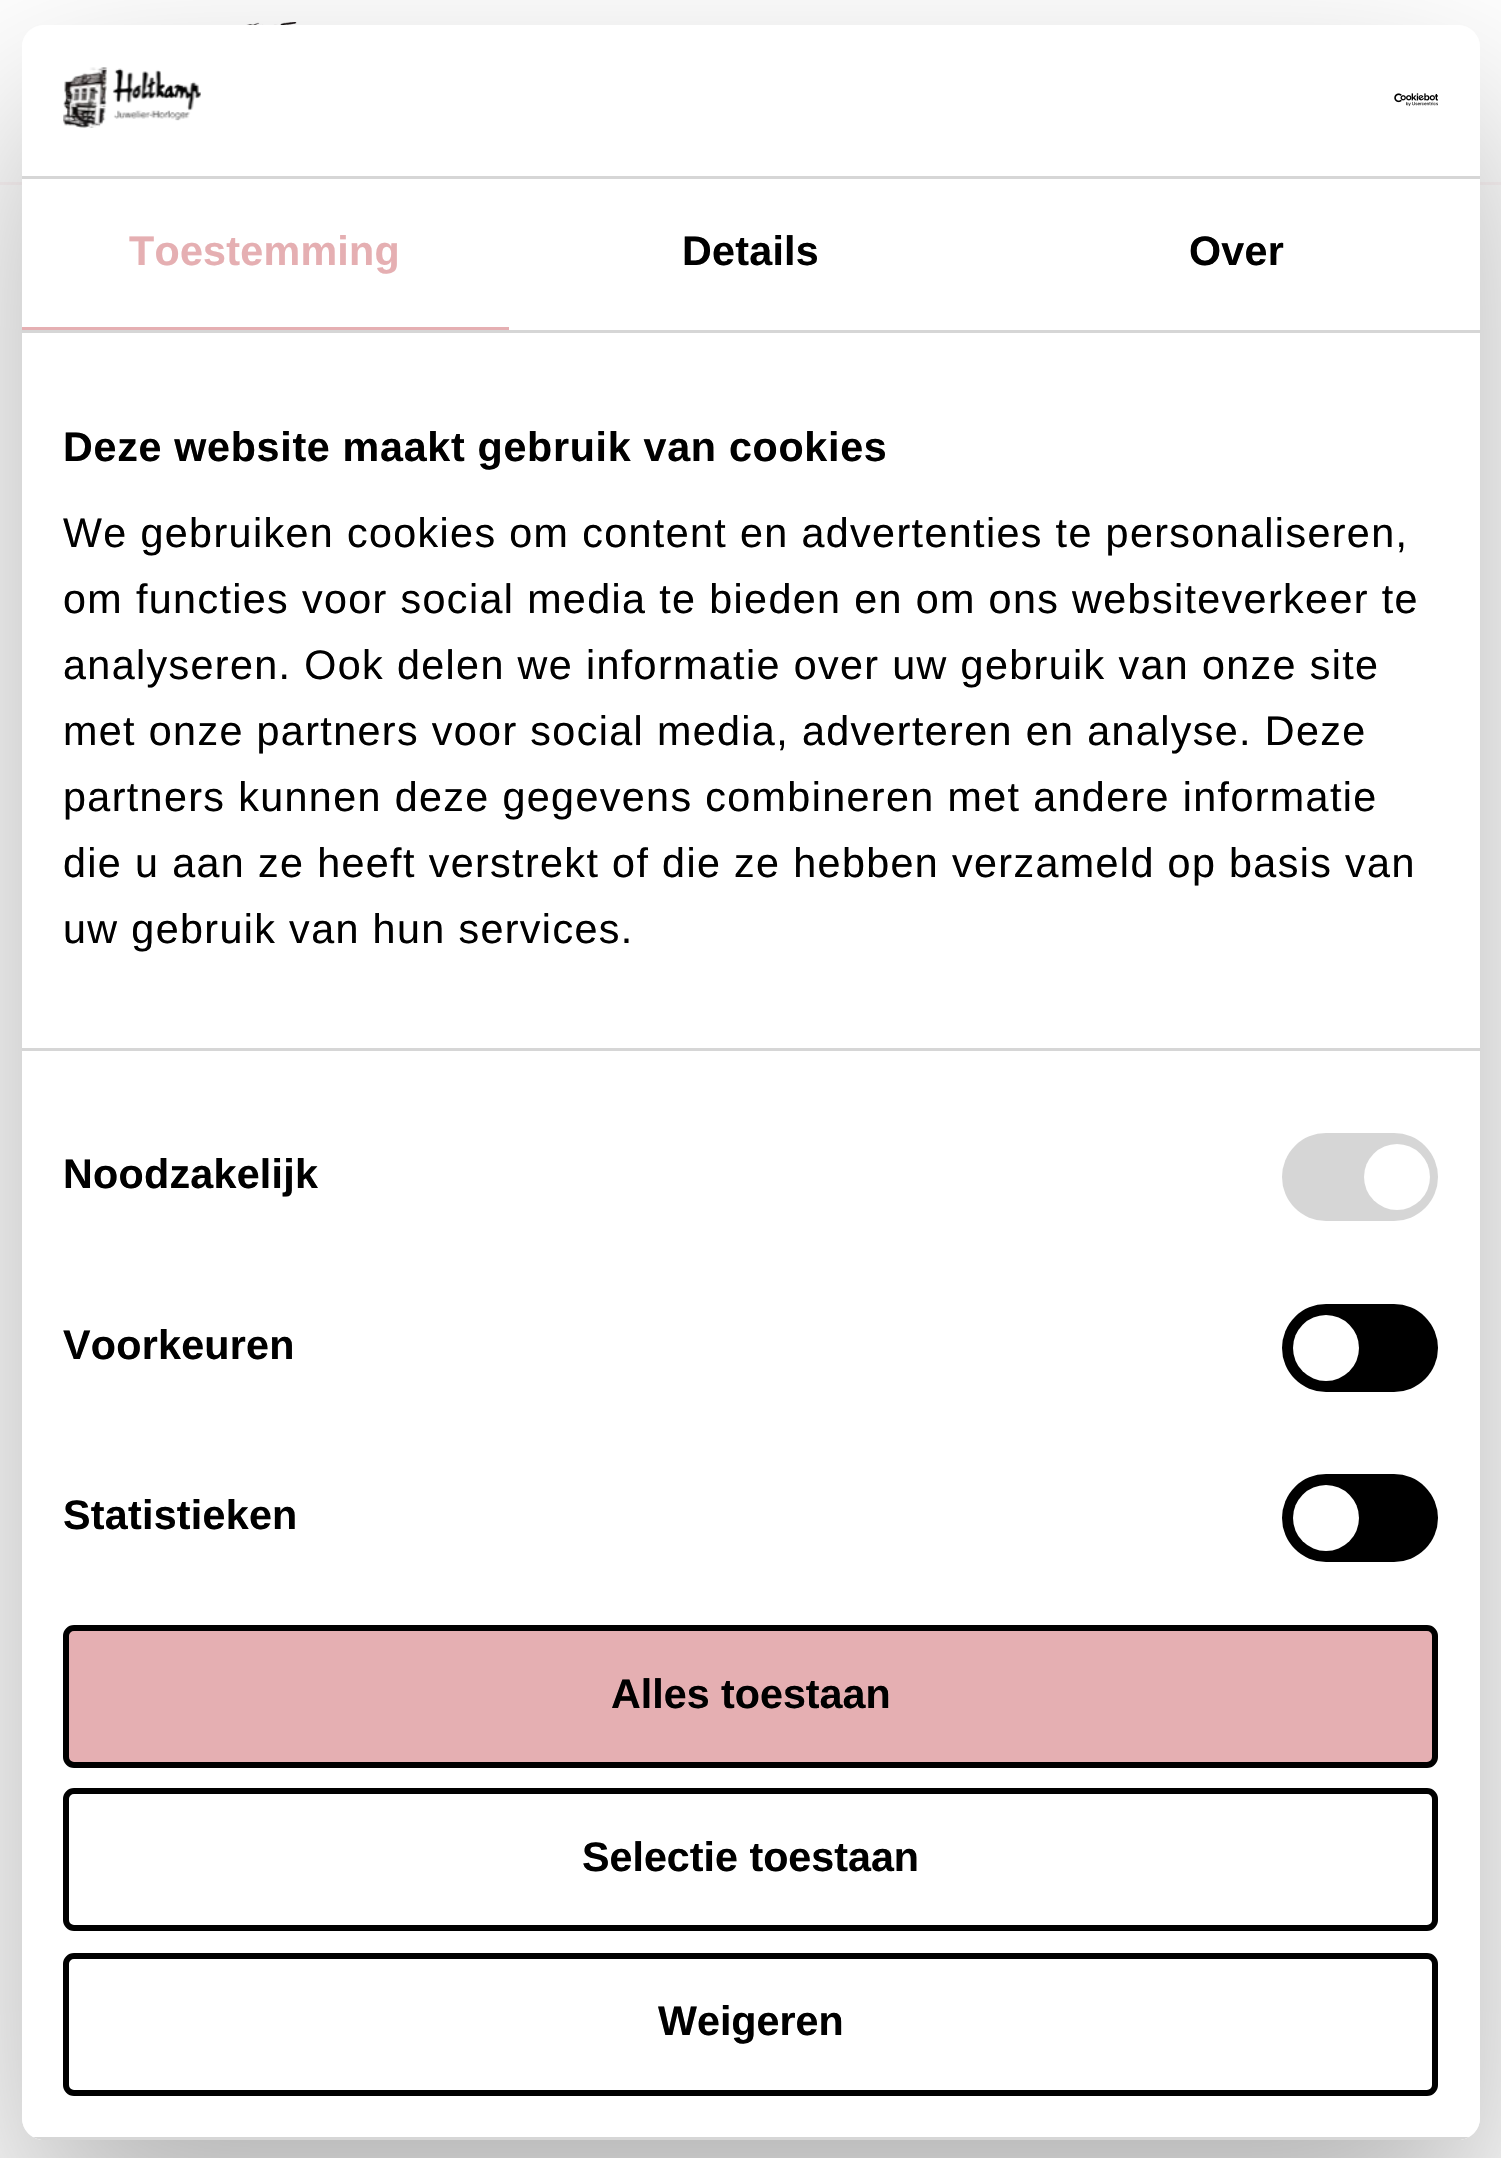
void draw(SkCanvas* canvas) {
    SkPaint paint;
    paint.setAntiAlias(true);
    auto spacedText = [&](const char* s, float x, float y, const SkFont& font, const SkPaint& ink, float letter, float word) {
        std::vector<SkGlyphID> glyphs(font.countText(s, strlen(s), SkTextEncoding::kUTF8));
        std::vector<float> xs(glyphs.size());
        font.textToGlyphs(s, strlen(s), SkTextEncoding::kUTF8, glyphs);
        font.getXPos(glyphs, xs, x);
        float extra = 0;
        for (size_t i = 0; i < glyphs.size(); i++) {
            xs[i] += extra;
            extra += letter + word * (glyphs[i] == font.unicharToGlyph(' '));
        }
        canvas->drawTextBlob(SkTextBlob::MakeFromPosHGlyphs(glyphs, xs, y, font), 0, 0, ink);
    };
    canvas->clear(0xFFFFFFFF);
    paint.setColor(0xFFFDF6F7);
    canvas->drawRect(SkRect::MakeXYWH(0, 182, 1501, 3), paint);
    canvas->drawImageRect(SkImages::DeferredFromEncodedData(SkData::MakeFromFileName("img1.png")), SkRect::MakeXYWH(246, 22, 51, 3), SkSamplingOptions());
    canvas->save();
    canvas->clipPath(SkPathBuilder(SkPathFillType::kEvenOdd).moveTo(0, 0).lineTo(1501, 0).lineTo(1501, 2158).lineTo(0, 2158).close().moveTo(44, 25).lineTo(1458, 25).cubicTo(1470, 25, 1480, 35, 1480, 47).lineTo(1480, 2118).cubicTo(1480, 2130, 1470, 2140, 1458, 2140).lineTo(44, 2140).cubicTo(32, 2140, 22, 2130, 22, 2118).lineTo(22, 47).cubicTo(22, 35, 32, 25, 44, 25).close().detach(), true);
    paint.setColor(0x4D000000);
    paint.setMaskFilter(SkMaskFilter::MakeBlur(kNormal_SkBlurStyle, 93.5f));
    canvas->drawRoundRect(SkRect::MakeXYWH(22, 113, 1458, 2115), 22, 22, paint);
    paint.setMaskFilter(nullptr);
    canvas->restore();
    paint.setColor(0xFFFFFFFF);
    canvas->drawRoundRect(SkRect::MakeXYWH(22, 25, 1458, 2115), 22, 22, paint);
    paint.setColor(0xFFD6D6D6);
    canvas->drawRect(SkRect::MakeXYWH(22, 176, 1458, 3), paint);
    canvas->drawImageRect(SkImages::DeferredFromEncodedData(SkData::MakeFromFileName("img2.png")), SkRect::MakeXYWH(63, 67, 138, 61), SkSamplingOptions());
    canvas->drawImageRect(SkImages::DeferredFromEncodedData(SkData::MakeFromFileName("img3.png")), SkRect::MakeXYWH(1394, 93, 44, 14), SkSamplingOptions());
    canvas->drawRect(SkRect::MakeXYWH(22, 330, 1458, 3), paint);
    paint.setColor(0xFFE5AFB2);
    canvas->drawRect(SkRect::MakeXYWH(22, 327, 487, 3), paint);
    SkFont font1(fontMgr->matchFamilyStyle("Liberation Sans", SkFontStyle::Bold()), 41.25f);
    font1.setSubpixel(true);
    spacedText("Toestemming", 129, 265, font1, paint, 0.25f, 0);
    paint.setColor(0xFF000000);
    spacedText("Details", 682, 265, font1, paint, 0.25f, 0);
    spacedText("Over", 1189, 265, font1, paint, 0.25f, 0);
    paint.setColor(0xFFD6D6D6);
    canvas->drawRect(SkRect::MakeXYWH(22, 1048, 1458, 3), paint);
    paint.setColor(0xFF000000);
    spacedText("Deze website maakt gebruik van cookies", 63, 461, font1, paint, 0.7f, 0);
    SkFont font2(fontMgr->matchFamilyStyle("Liberation Sans", SkFontStyle::Normal()), 41.25f);
    font2.setSubpixel(true);
    spacedText("We gebruiken cookies om content en advertenties te personaliseren,", 63, 547, font2, paint, 1.38f, 0);
    spacedText("om functies voor social media te bieden en om ons websiteverkeer te", 63, 613, font2, paint, 1.38f, 0);
    spacedText("analyseren. Ook delen we informatie over uw gebruik van onze site", 63, 679, font2, paint, 1.38f, 0);
    spacedText("met onze partners voor social media, adverteren en analyse. Deze", 63, 745, font2, paint, 1.38f, 0);
    spacedText("partners kunnen deze gegevens combineren met andere informatie", 63, 811, font2, paint, 1.38f, 0);
    spacedText("die u aan ze heeft verstrekt of die ze hebben verzameld op basis van", 63, 877, font2, paint, 1.38f, 0);
    spacedText("uw gebruik van hun services.", 63, 943, font2, paint, 1.38f, 0);
    spacedText("Noodzakelijk", 63, 1188, font1, paint, 0.25f, 0);
    paint.setColor(0xFFD6D6D6);
    canvas->drawRoundRect(SkRect::MakeXYWH(1282, 1133, 156, 88), 44, 44, paint);
    paint.setColor(0xFFFFFFFF);
    canvas->drawCircle(1397, 1177, 33, paint);
    paint.setColor(0xFF000000);
    spacedText("Voorkeuren", 63, 1359, font1, paint, 0.25f, 0);
    canvas->drawRoundRect(SkRect::MakeXYWH(1282, 1304, 156, 88), 44, 44, paint);
    paint.setColor(0xFFFFFFFF);
    canvas->drawCircle(1326, 1348, 33, paint);
    paint.setColor(0xFF000000);
    spacedText("Statistieken", 63, 1529, font1, paint, 0.25f, 0);
    canvas->drawRoundRect(SkRect::MakeXYWH(1282, 1474, 156, 88), 44, 44, paint);
    paint.setColor(0xFFFFFFFF);
    canvas->drawCircle(1326, 1518, 33, paint);
    canvas->save();
    canvas->clipPath(SkPathBuilder().moveTo(44, 25).lineTo(1458, 25).cubicTo(1470, 25, 1480, 35, 1480, 47).lineTo(1480, 2118).cubicTo(1480, 2130, 1470, 2140, 1458, 2140).lineTo(44, 2140).cubicTo(32, 2140, 22, 2130, 22, 2118).lineTo(22, 47).cubicTo(22, 35, 32, 25, 44, 25).close().detach(), true);
    paint.setColor(0xFFD6D6D6);
    canvas->drawRect(SkRect::MakeXYWH(33, 2137, 1436, 3), paint);
    canvas->restore();
    paint.setColor(0xFFE5AFB2);
    canvas->drawRoundRect(SkRect::MakeXYWH(66, 1628, 1369, 137), 8, 8, paint);
    paint.setStyle(SkPaint::kStroke_Style);
    paint.setStrokeWidth(6);
    paint.setColor(0xFF000000);
    canvas->drawRoundRect(SkRect::MakeXYWH(66, 1628, 1369, 137), 8, 8, paint);
    paint.setStyle(SkPaint::kFill_Style);
    canvas->drawString("Alles toestaan", 611, 1708, font1, paint);
    paint.setStyle(SkPaint::kStroke_Style);
    canvas->drawRoundRect(SkRect::MakeXYWH(66, 1791, 1369, 137), 8, 8, paint);
    paint.setStyle(SkPaint::kFill_Style);
    canvas->drawString("Selectie toestaan", 582, 1871, font1, paint);
    paint.setStyle(SkPaint::kStroke_Style);
    canvas->drawRoundRect(SkRect::MakeXYWH(66, 1956, 1369, 137), 8, 8, paint);
    paint.setStyle(SkPaint::kFill_Style);
    canvas->drawString("Weigeren", 658, 2035, font1, paint);
}
